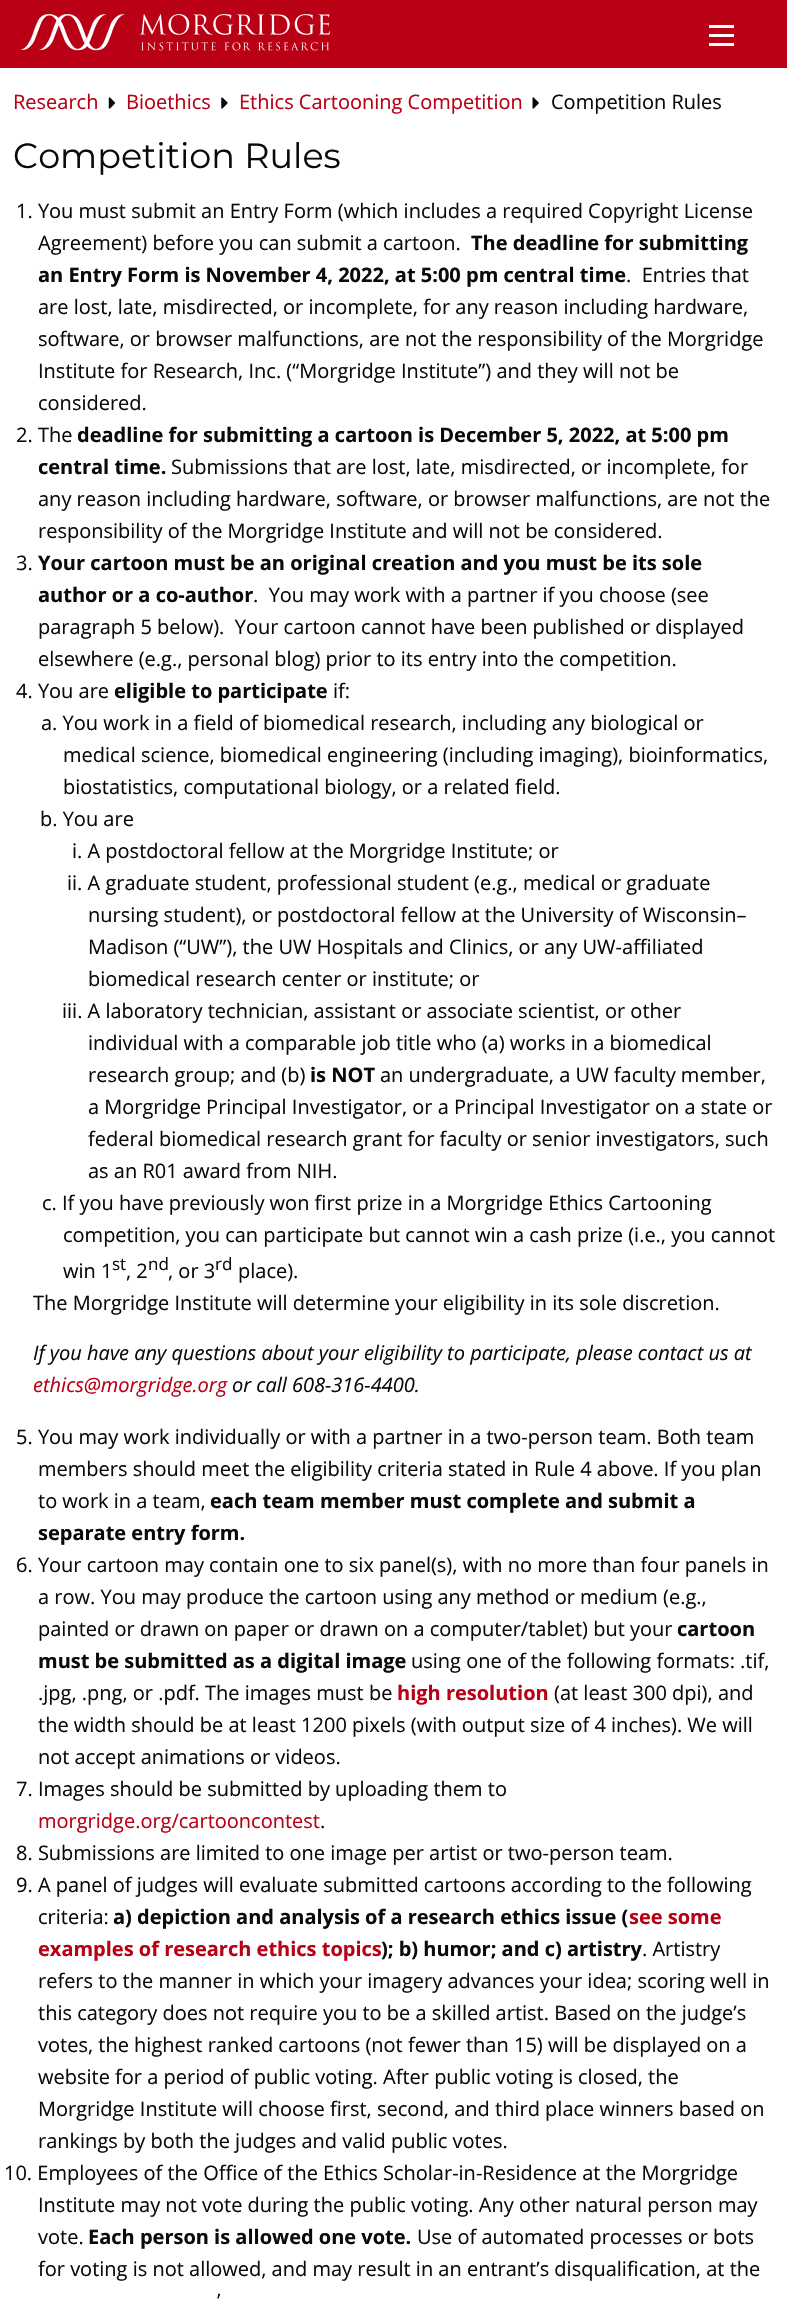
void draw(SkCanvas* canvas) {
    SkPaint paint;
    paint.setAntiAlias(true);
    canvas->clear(0xFFFFFFFF);
    paint.setColor(0xFFB90014);
    canvas->drawRect(SkRect::MakeXYWH(0, 0, 787, 68), paint);
    canvas->drawImageRect(SkImages::DeferredFromEncodedData(SkData::MakeFromFileName("img1.png")), SkRect::MakeXYWH(20, 14, 310, 37), SkSamplingOptions());
    paint.setColor(0xFFFEFEFE);
    canvas->drawRect(SkRect::MakeXYWH(709, 43, 25, 3), paint);
    canvas->drawRect(SkRect::MakeXYWH(709, 34, 25, 3), paint);
    canvas->drawRect(SkRect::MakeXYWH(709, 25, 25, 3), paint);
    SkFont font1(fontMgr->matchFamilyStyle("Open Sans", SkFontStyle::Normal()), 20);
    font1.setSubpixel(true);
    paint.setColor(0xFFB90014);
    canvas->drawString("Research", 13, 109, font1, paint);
    canvas->drawImageRect(SkImages::DeferredFromEncodedData(SkData::MakeFromFileName("img2.png")), SkRect::MakeXYWH(108, 97, 8, 12), SkSamplingOptions());
    canvas->drawString("Bioethics", 126, 109, font1, paint);
    canvas->drawImageRect(SkImages::DeferredFromEncodedData(SkData::MakeFromFileName("img3.png")), SkRect::MakeXYWH(221, 97, 7, 12), SkSamplingOptions());
    canvas->drawString("Ethics Cartooning Competition", 239, 109, font1, paint);
    canvas->drawImageRect(SkImages::DeferredFromEncodedData(SkData::MakeFromFileName("img4.png")), SkRect::MakeXYWH(532, 97, 7, 12), SkSamplingOptions());
    paint.setColor(0xFF0A0A0A);
    canvas->drawString("Competition Rules", 551, 109, font1, paint);
    SkFont font2(fontMgr->matchFamilyStyle("Montserrat", SkFontStyle(100, SkFontStyle::kNormal_Width, SkFontStyle::kUpright_Slant)), 35);
    font2.setSubpixel(true);
    canvas->drawString("Competition Rules", 13, 168, font2, paint);
    canvas->drawString("1. You must submit an Entry Form (which includes a required Copyright License", 16, 218, font1, paint);
    canvas->drawString("Agreement) before you can submit a cartoon.", 38, 250, font1, paint);
    SkFont font3(fontMgr->matchFamilyStyle("Open Sans", SkFontStyle::Bold()), 20);
    font3.setSubpixel(true);
    canvas->drawString("The deadline for submitting", 471, 250, font3, paint);
    canvas->drawString("an Entry Form is November 4, 2022, at 5:00 pm central time", 38, 282, font3, paint);
    canvas->drawString(".  Entries that", 626, 282, font1, paint);
    canvas->drawString("are lost, late, misdirected, or incomplete, for any reason including hardware,", 38, 314, font1, paint);
    canvas->drawString("software, or browser malfunctions, are not the responsibility of the Morgridge", 38, 346, font1, paint);
    canvas->drawString("Institute for Research, Inc. (“Morgridge Institute”) and they will not be", 38, 378, font1, paint);
    canvas->drawString("considered.", 38, 410, font1, paint);
    canvas->drawString("2. The", 16, 442, font1, paint);
    canvas->drawString("deadline for submitting a cartoon is December 5, 2022, at 5:00 pm", 77, 442, font3, paint);
    canvas->drawString("central time.", 38, 474, font3, paint);
    canvas->drawString("Submissions that are lost, late, misdirected, or incomplete, for", 171, 474, font1, paint);
    canvas->drawString("any reason including hardware, software, or browser malfunctions, are not the", 38, 506, font1, paint);
    canvas->drawString("responsibility of the Morgridge Institute and will not be considered.", 38, 538, font1, paint);
    canvas->drawString("3.", 16, 570, font1, paint);
    canvas->drawString("Your cartoon must be an original creation and you must be its sole", 38, 570, font3, paint);
    canvas->drawString("author or a co-author", 38, 602, font3, paint);
    canvas->drawString(".  You may work with a partner if you choose (see", 253, 602, font1, paint);
    canvas->drawString("paragraph 5 below).  Your cartoon cannot have been published or displayed", 38, 634, font1, paint);
    canvas->drawString("elsewhere (e.g., personal blog) prior to its entry into the competition.", 38, 666, font1, paint);
    canvas->drawString("4. You are", 16, 698, font1, paint);
    canvas->drawString("eligible to participate", 114, 698, font3, paint);
    canvas->drawString("if:", 333, 698, font1, paint);
    canvas->drawString("a. You work in a field of biomedical research, including any biological or", 41, 730, font1, paint);
    canvas->drawString("medical science, biomedical engineering (including imaging), bioinformatics,", 63, 762, font1, paint);
    canvas->drawString("biostatistics, computational biology, or a related field.", 63, 794, font1, paint);
    canvas->drawString("b. You are", 40, 826, font1, paint);
    canvas->drawString("i. A postdoctoral fellow at the Morgridge Institute; or", 72, 858, font1, paint);
    canvas->drawString("ii. A graduate student, professional student (e.g., medical or graduate", 67, 890, font1, paint);
    canvas->drawString("nursing student), or postdoctoral fellow at the University of Wisconsin–", 88, 922, font1, paint);
    canvas->drawString("Madison (“UW”), the UW Hospitals and Clinics, or any UW-affiliated", 88, 954, font1, paint);
    canvas->drawString("biomedical research center or institute; or", 88, 986, font1, paint);
    canvas->drawString("iii. A laboratory technician, assistant or associate scientist, or other", 62, 1018, font1, paint);
    canvas->drawString("individual with a comparable job title who (a) works in a biomedical", 88, 1050, font1, paint);
    canvas->drawString("research group; and (b)", 88, 1082, font1, paint);
    canvas->drawString("is NOT", 310, 1082, font3, paint);
    canvas->drawString("an undergraduate, a UW faculty member,", 380, 1082, font1, paint);
    canvas->drawString("a Morgridge Principal Investigator, or a Principal Investigator on a state or", 88, 1114, font1, paint);
    canvas->drawString("federal biomedical research grant for faculty or senior investigators, such", 88, 1146, font1, paint);
    canvas->drawString("as an R01 award from NIH.", 88, 1178, font1, paint);
    canvas->drawString("c. If you have previously won first prize in a Morgridge Ethics Cartooning", 42, 1210, font1, paint);
    canvas->drawString("competition, you can participate but cannot win a cash prize (i.e., you cannot", 63, 1242, font1, paint);
    canvas->drawString("win 1", 63, 1278, font1, paint);
    SkFont font4(fontMgr->matchFamilyStyle("Open Sans", SkFontStyle::Normal()), 17);
    font4.setSubpixel(true);
    canvas->drawString("st", 112, 1270, font4, paint);
    canvas->drawString(", 2", 126, 1278, font1, paint);
    canvas->drawString("nd", 148, 1270, font4, paint);
    canvas->drawString(", or 3", 168, 1278, font1, paint);
    canvas->drawString("rd", 215, 1270, font4, paint);
    canvas->drawString("place).", 238, 1278, font1, paint);
    canvas->drawString("The Morgridge Institute will determine your eligibility in its sole discretion.", 33, 1310, font1, paint);
    SkFont font5(fontMgr->matchFamilyStyle("Open Sans", SkFontStyle::Italic()), 20);
    font5.setSubpixel(true);
    canvas->drawString("If you have any questions about your eligibility to participate, please contact us at", 33, 1360, font5, paint);
    paint.setColor(0xFFB90014);
    canvas->drawString("ethics@morgridge.org", 33, 1392, font5, paint);
    paint.setColor(0xFF0A0A0A);
    canvas->drawString("or call 608-316-4400.", 232, 1392, font5, paint);
    canvas->drawString("5. You may work individually or with a partner in a two-person team. Both team", 16, 1444, font1, paint);
    canvas->drawString("members should meet the eligibility criteria stated in Rule 4 above. If you plan", 38, 1476, font1, paint);
    canvas->drawString("to work in a team,", 38, 1508, font1, paint);
    canvas->drawString("each team member must complete and submit a", 210, 1508, font3, paint);
    canvas->drawString("separate entry form.", 38, 1540, font3, paint);
    canvas->drawString("6. Your cartoon may contain one to six panel(s), with no more than four panels in", 16, 1572, font1, paint);
    canvas->drawString("a row. You may produce the cartoon using any method or medium (e.g.,", 38, 1604, font1, paint);
    canvas->drawString("painted or drawn on paper or drawn on a computer/tablet) but your", 38, 1636, font1, paint);
    canvas->drawString("cartoon", 677, 1636, font3, paint);
    canvas->drawString("must be submitted as a digital image", 38, 1668, font3, paint);
    canvas->drawString("using one of the following formats: .tif,", 411, 1668, font1, paint);
    canvas->drawString(".jpg, .png, or .pdf. The images must be", 38, 1700, font1, paint);
    paint.setColor(0xFFB90014);
    canvas->drawString("high resolution", 397, 1700, font3, paint);
    paint.setColor(0xFF0A0A0A);
    canvas->drawString("(at least 300 dpi), and", 554, 1700, font1, paint);
    canvas->drawString("the width should be at least 1200 pixels (with output size of 4 inches). We will", 38, 1732, font1, paint);
    canvas->drawString("not accept animations or videos.", 38, 1764, font1, paint);
    canvas->drawString("7. Images should be submitted by uploading them to", 16, 1796, font1, paint);
    paint.setColor(0xFFB90014);
    canvas->drawString("morgridge.org/cartooncontest", 38, 1828, font1, paint);
    paint.setColor(0xFF0A0A0A);
    canvas->drawString(".", 320, 1828, font1, paint);
    canvas->drawString("8. Submissions are limited to one image per artist or two-person team.", 16, 1860, font1, paint);
    canvas->drawString("9. A panel of judges will evaluate submitted cartoons according to the following", 16, 1892, font1, paint);
    canvas->drawString("criteria:", 38, 1924, font1, paint);
    canvas->drawString("a) depiction and analysis of a research ethics issue (", 113, 1924, font3, paint);
    paint.setColor(0xFFB90014);
    canvas->drawString("see some", 629, 1924, font3, paint);
    canvas->drawString("examples of research ethics topics", 38, 1956, font3, paint);
    paint.setColor(0xFF0A0A0A);
    canvas->drawString("); b) humor; and c) artistry", 381, 1956, font3, paint);
    canvas->drawString(". Artistry", 642, 1956, font1, paint);
    canvas->drawString("refers to the manner in which your imagery advances your idea; scoring well in", 38, 1988, font1, paint);
    canvas->drawString("this category does not require you to be a skilled artist. Based on the judge’s", 38, 2020, font1, paint);
    canvas->drawString("votes, the highest ranked cartoons (not fewer than 15) will be displayed on a", 38, 2052, font1, paint);
    canvas->drawString("website for a period of public voting. After public voting is closed, the", 38, 2084, font1, paint);
    canvas->drawString("Morgridge Institute will choose first, second, and third place winners based on", 38, 2116, font1, paint);
    canvas->drawString("rankings by both the judges and valid public votes.", 38, 2148, font1, paint);
    canvas->drawString("10. Employees of the Office of the Ethics Scholar-in-Residence at the Morgridge", 4, 2180, font1, paint);
    canvas->drawString("Institute may not vote during the public voting. Any other natural person may", 38, 2212, font1, paint);
    canvas->drawString("vote.", 38, 2244, font1, paint);
    canvas->drawString("Each person is allowed one vote.", 88, 2244, font3, paint);
    canvas->drawString("Use of automated processes or bots", 417, 2244, font1, paint);
    canvas->drawString("for voting is not allowed, and may result in an entrant’s disqualification, at the", 38, 2276, font1, paint);
    canvas->drawString("’", 217, 2308, font1, paint);
}
